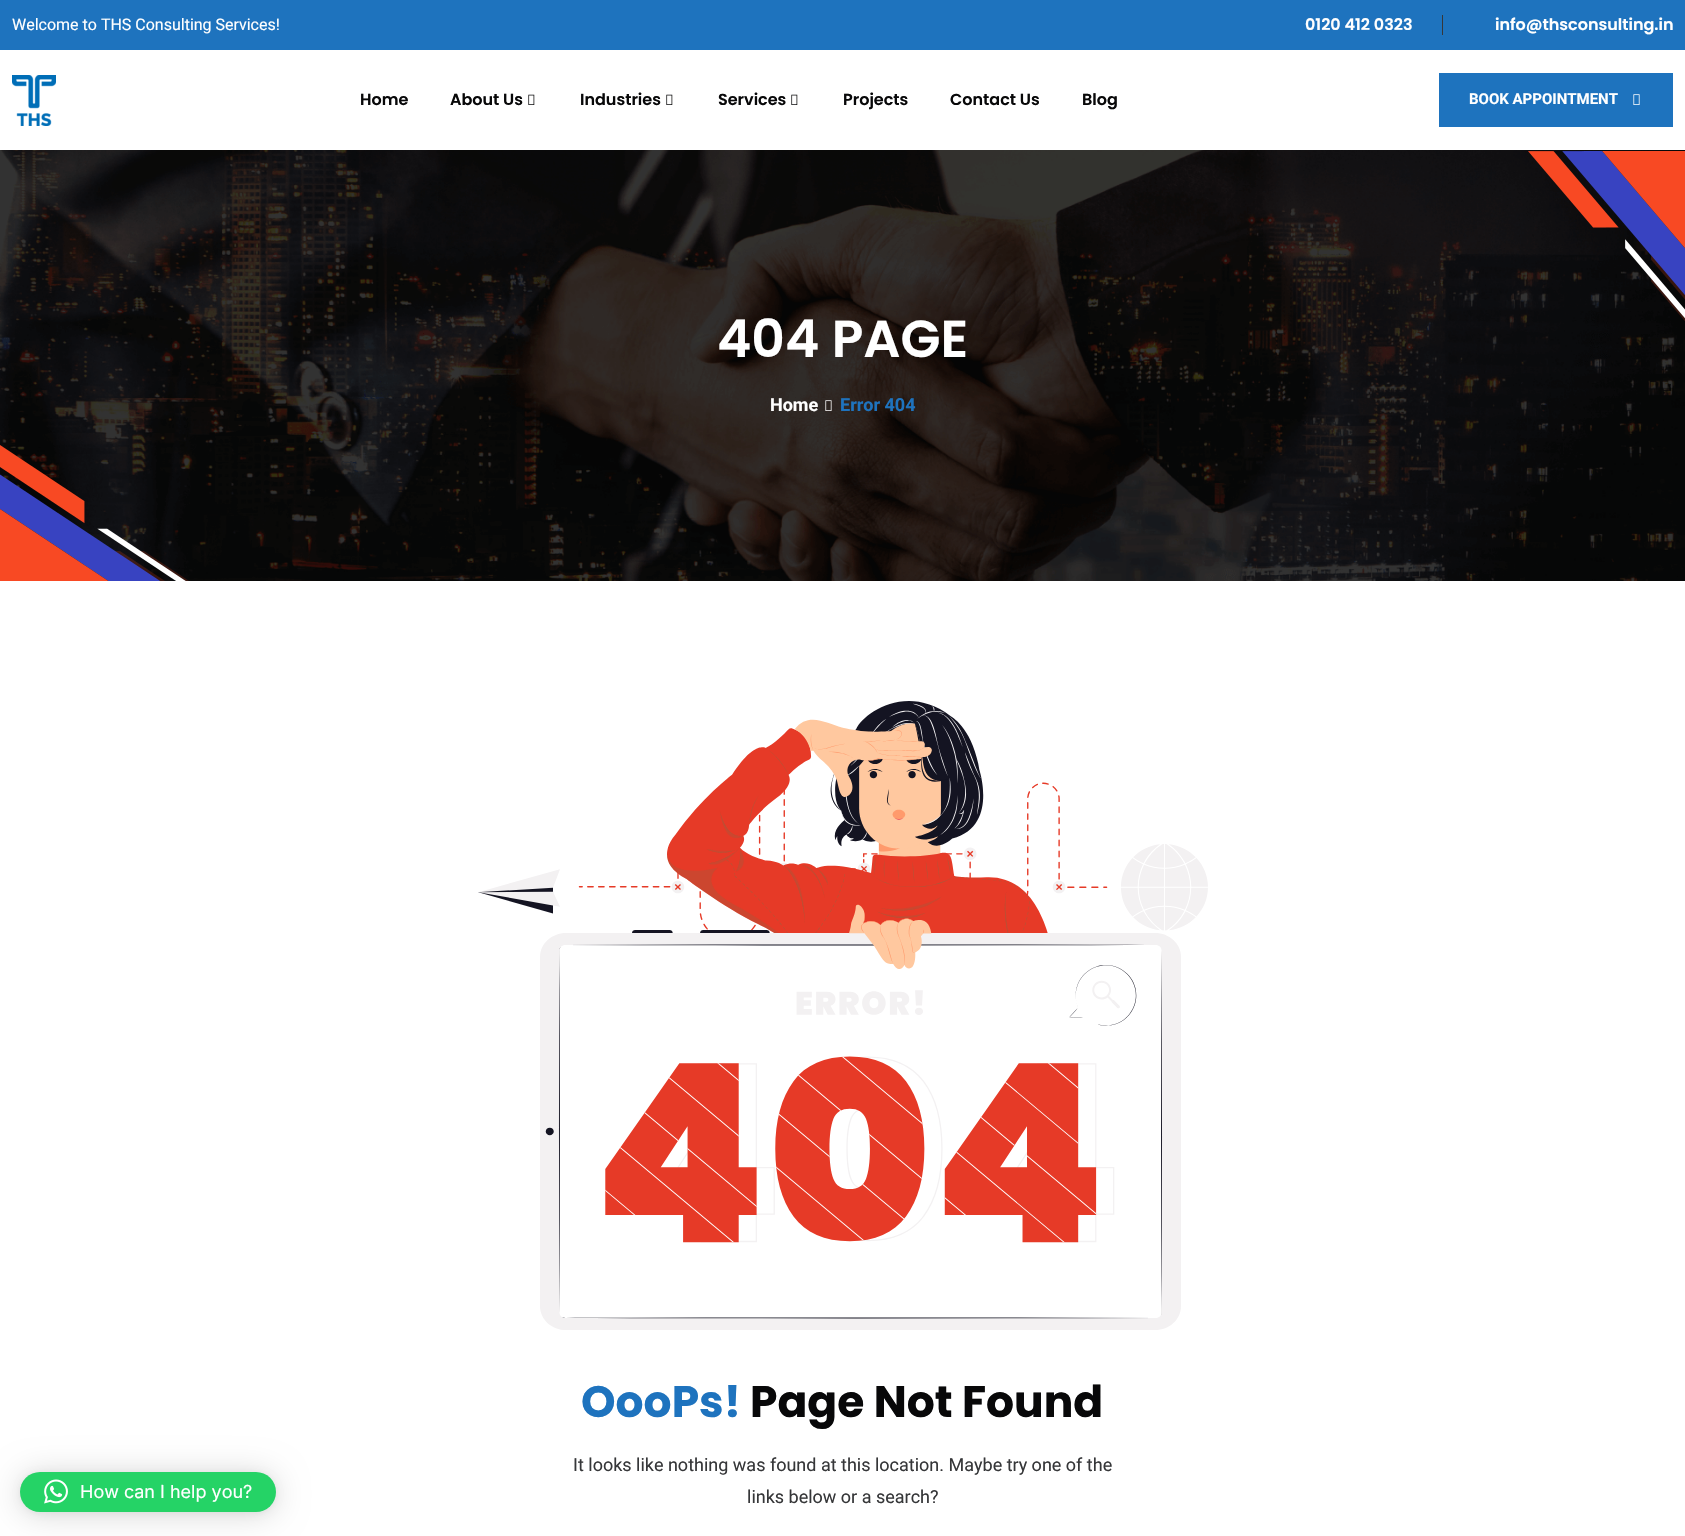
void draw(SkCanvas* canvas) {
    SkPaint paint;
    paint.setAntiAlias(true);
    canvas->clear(0xFFFFFFFF);
    paint.setColor(0xFF1E73BE);
    canvas->drawRect(SkRect::MakeXYWH(0, 0, 1685, 50), paint);
    SkFont font1(fontMgr->matchFamilyStyle("Roboto", SkFontStyle::Normal()), 16);
    font1.setSubpixel(true);
    paint.setColor(0xFFFFFFFF);
    canvas->drawString("Welcome to THS Consulting Services!", 12, 30, font1, paint);
    SkFont font2(fontMgr->matchFamilyStyle("Poppins", SkFontStyle(600, SkFontStyle::kNormal_Width, SkFontStyle::kUpright_Slant)), 16);
    font2.setSubpixel(true);
    canvas->drawString("0120 412 0323", 1305, 30, font2, paint);
    paint.setColor(0xFF363739);
    canvas->drawRect(SkRect::MakeXYWH(1442, 15, 1, 20), paint);
    paint.setColor(0xFFFFFFFF);
    canvas->drawString("info@thsconsulting.in", 1495, 30, font2, paint);
    canvas->drawImageRect(SkImages::DeferredFromEncodedData(SkData::MakeFromFileName("img1.png")), SkRect::MakeXYWH(12, 75, 44, 51), SkSamplingOptions());
    paint.setColor(0xFF080809);
    canvas->drawString("Home", 360, 105, font2, paint);
    canvas->drawString("About Us", 450, 105, font2, paint);
    canvas->drawImageRect(SkImages::DeferredFromEncodedData(SkData::MakeFromFileName("img2.png")), SkRect::MakeXYWH(528, 94, 7, 11), SkSamplingOptions());
    canvas->drawString("Industries", 580, 105, font2, paint);
    canvas->drawImageRect(SkImages::DeferredFromEncodedData(SkData::MakeFromFileName("img2.png")), SkRect::MakeXYWH(666, 94, 7, 11), SkSamplingOptions());
    canvas->drawString("Services", 718, 105, font2, paint);
    canvas->drawImageRect(SkImages::DeferredFromEncodedData(SkData::MakeFromFileName("img2.png")), SkRect::MakeXYWH(791, 94, 7, 11), SkSamplingOptions());
    canvas->drawString("Projects", 843, 105, font2, paint);
    canvas->drawString("Contact Us", 950, 105, font2, paint);
    canvas->drawString("Blog", 1082, 105, font2, paint);
    paint.setColor(0xFF1E73BE);
    canvas->drawRect(SkRect::MakeXYWH(1439, 73, 234, 54), paint);
    SkFont font3(fontMgr->matchFamilyStyle("Roboto", SkFontStyle::Bold()), 15);
    font3.setSubpixel(true);
    paint.setColor(0xFFFFFFFF);
    canvas->drawString("BOOK APPOINTMENT", 1469, 104, font3, paint);
    canvas->drawImageRect(SkImages::DeferredFromEncodedData(SkData::MakeFromFileName("img3.png")), SkRect::MakeXYWH(1633, 94, 7, 11), SkSamplingOptions());
    canvas->drawImageRect(SkImages::DeferredFromEncodedData(SkData::MakeFromFileName("img4.png")), SkRect::MakeXYWH(0, 150, 1685, 431), SkSamplingOptions());
    canvas->drawImageRect(SkImages::DeferredFromEncodedData(SkData::MakeFromFileName("img5.png")), SkRect::MakeXYWH(1528, 151, 157, 170), SkSamplingOptions());
    SkFont font4(fontMgr->matchFamilyStyle("Poppins", SkFontStyle(600, SkFontStyle::kNormal_Width, SkFontStyle::kUpright_Slant)), 52);
    font4.setSubpixel(true);
    canvas->drawString("404 PAGE", 717, 357, font4, paint);
    SkFont font5(fontMgr->matchFamilyStyle("Roboto", SkFontStyle::Bold()), 18);
    font5.setSubpixel(true);
    canvas->drawString("Home", 770, 411, font5, paint);
    canvas->drawImageRect(SkImages::DeferredFromEncodedData(SkData::MakeFromFileName("img6.png")), SkRect::MakeXYWH(825, 400, 7, 11), SkSamplingOptions());
    paint.setColor(0xFF1E73BE);
    canvas->drawString("Error 404", 840, 411, font5, paint);
    canvas->drawImageRect(SkImages::DeferredFromEncodedData(SkData::MakeFromFileName("img7.png")), SkRect::MakeXYWH(0, 445, 189, 136), SkSamplingOptions());
    paint.setColor(0x29000000);
    paint.setMaskFilter(SkMaskFilter::MakeBlur(kNormal_SkBlurStyle, 16));
    canvas->drawRoundRect(SkRect::MakeXYWH(20, 1474, 256, 40), 20, 20, paint);
    paint.setMaskFilter(nullptr);
    paint.setColor(0x0F000000);
    paint.setMaskFilter(SkMaskFilter::MakeBlur(kNormal_SkBlurStyle, 3));
    canvas->drawRoundRect(SkRect::MakeXYWH(20, 1473, 256, 40), 20, 20, paint);
    paint.setMaskFilter(nullptr);
    paint.setColor(0xFF25D366);
    canvas->drawRoundRect(SkRect::MakeXYWH(20, 1472, 256, 40), 20, 20, paint);
    canvas->drawImageRect(SkImages::DeferredFromEncodedData(SkData::MakeFromFileName("img8.png")), SkRect::MakeXYWH(44, 1479, 24, 25), SkSamplingOptions());
    SkFont font6(fontMgr->matchFamilyStyle("Inter", SkFontStyle::Normal()), 18);
    font6.setSubpixel(true);
    paint.setColor(0xFFFFFFFF);
    canvas->drawString("How can I help you?", 80, 1498, font6, paint);
    canvas->drawImageRect(SkImages::DeferredFromEncodedData(SkData::MakeFromFileName("img9.png")), SkRect::MakeXYWH(478, 701, 730, 629), SkSamplingOptions());
    SkFont font7(fontMgr->matchFamilyStyle("Poppins", SkFontStyle::Bold()), 44);
    font7.setSubpixel(true);
    paint.setColor(0xFF1E73BE);
    canvas->drawString("OooPs!", 581, 1417, font7, paint);
    paint.setColor(0xFF080809);
    canvas->drawString("Page Not Found", 750, 1417, font7, paint);
    SkFont font8(fontMgr->matchFamilyStyle("Roboto", SkFontStyle::Normal()), 18);
    font8.setSubpixel(true);
    paint.setColor(0xFF363739);
    canvas->drawString("It looks like nothing was found at this location. Maybe try one of the", 573, 1471, font8, paint);
    canvas->drawString("links below or a search?", 747, 1503, font8, paint);
}
